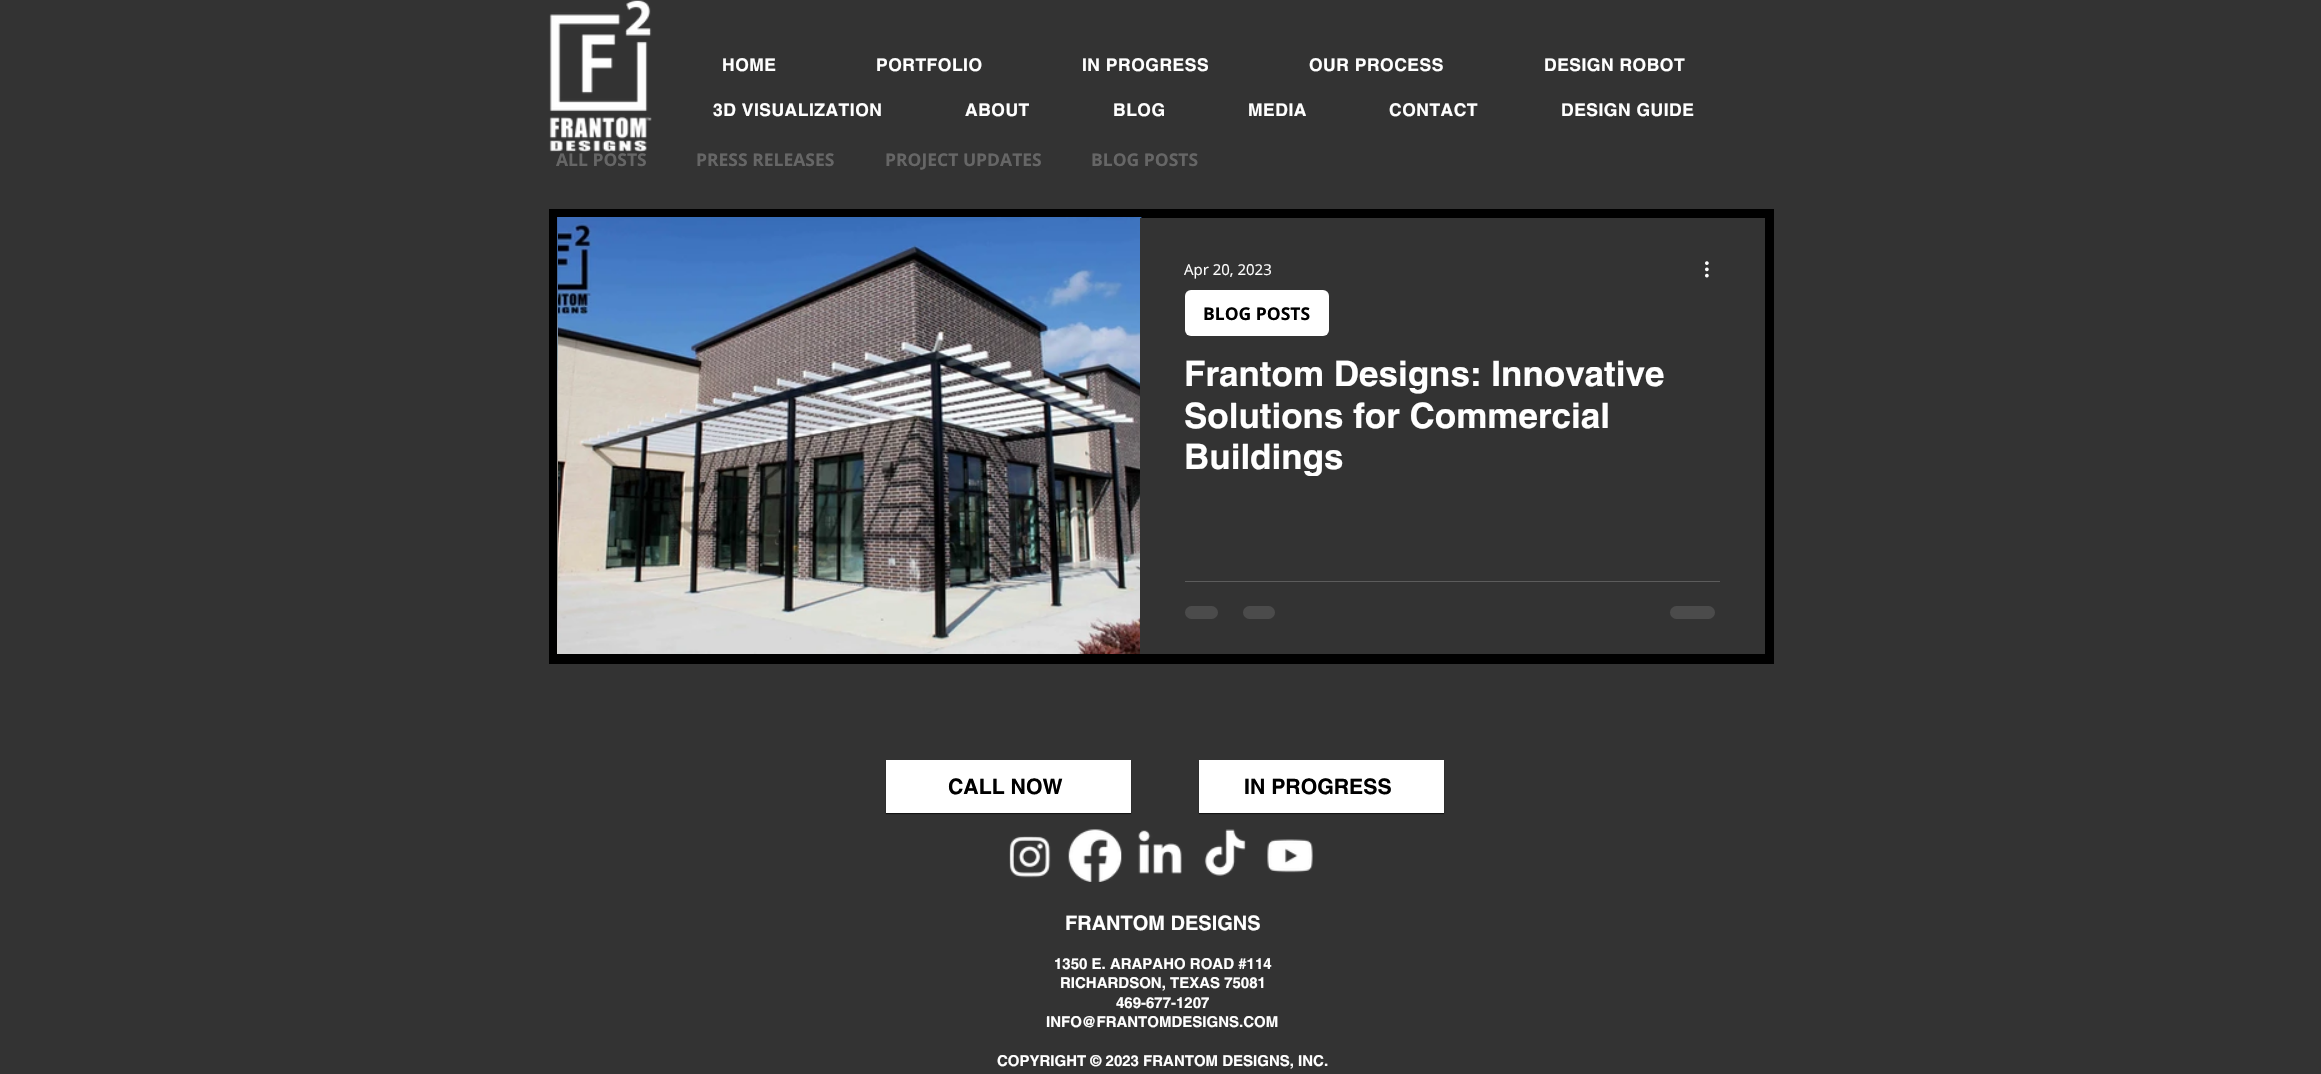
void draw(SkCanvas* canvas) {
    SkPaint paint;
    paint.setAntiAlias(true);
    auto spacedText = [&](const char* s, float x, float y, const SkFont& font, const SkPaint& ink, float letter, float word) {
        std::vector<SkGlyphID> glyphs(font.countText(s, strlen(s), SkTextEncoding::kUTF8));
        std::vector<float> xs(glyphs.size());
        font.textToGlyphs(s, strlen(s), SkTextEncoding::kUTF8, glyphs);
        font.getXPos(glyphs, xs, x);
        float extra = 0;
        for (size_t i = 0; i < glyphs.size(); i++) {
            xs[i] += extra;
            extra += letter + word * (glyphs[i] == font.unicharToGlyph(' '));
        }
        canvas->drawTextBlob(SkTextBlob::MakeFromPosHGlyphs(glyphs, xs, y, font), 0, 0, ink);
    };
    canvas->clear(0xFF333333);
    canvas->drawImageRect(SkImages::DeferredFromEncodedData(SkData::MakeFromFileName("img1.png")), SkRect::MakeXYWH(549, 0, 103, 152), SkSamplingOptions());
    SkFont font1(fontMgr->matchFamilyStyle("helvetica", SkFontStyle::Bold()), 17.5f);
    font1.setSubpixel(true);
    paint.setColor(0xFFFFFFFF);
    spacedText("HOME", 722, 71, font1, paint, 0.5f, 0);
    spacedText("PORTFOLIO", 876, 71, font1, paint, 0.5f, 0);
    spacedText("IN PROGRESS", 1082, 71, font1, paint, 0.5f, 0);
    spacedText("OUR PROCESS", 1309, 71, font1, paint, 0.5f, 0);
    spacedText("DESIGN ROBOT", 1544, 71, font1, paint, 0.5f, 0);
    spacedText("3D VISUALIZATION", 713, 116, font1, paint, 0.5f, 0);
    spacedText("ABOUT", 965, 116, font1, paint, 0.5f, 0);
    spacedText("BLOG", 1113, 116, font1, paint, 0.5f, 0);
    spacedText("MEDIA", 1248, 116, font1, paint, 0.5f, 0);
    spacedText("CONTACT", 1389, 116, font1, paint, 0.5f, 0);
    spacedText("DESIGN GUIDE", 1561, 116, font1, paint, 0.5f, 0);
    paint.setColor(0xFF000000);
    canvas->drawRect(SkRect::MakeXYWH(549, 209, 1225, 455), paint);
    SkFont font2(fontMgr->matchFamilyStyle("Open Sans", SkFontStyle::Bold()), 17.5f);
    font2.setSubpixel(true);
    paint.setColor(0xFF666666);
    canvas->drawString("ALL POSTS", 556, 166, font2, paint);
    canvas->drawString("PRESS RELEASES", 696, 166, font2, paint);
    canvas->drawString("PROJECT UPDATES", 885, 166, font2, paint);
    canvas->drawString("BLOG POSTS", 1091, 166, font2, paint);
    canvas->drawImageRect(SkImages::DeferredFromEncodedData(SkData::MakeFromFileName("img2.png")), SkRect::MakeXYWH(557, 217, 585, 437), SkSamplingOptions());
    canvas->drawImageRect(SkImages::DeferredFromEncodedData(SkData::MakeFromFileName("img3.png")), SkRect::MakeXYWH(558, 217, 583, 437), SkSamplingOptions());
    paint.setColor(0xFF333333);
    canvas->drawRect(SkRect::MakeXYWH(1140, 218, 625, 436), paint);
    SkFont font3(fontMgr->matchFamilyStyle("Open Sans", SkFontStyle::Normal()), 15);
    font3.setSubpixel(true);
    paint.setColor(0xFFFFFFFF);
    canvas->drawString("Apr 20, 2023", 1184, 275, font3, paint);
    canvas->drawImageRect(SkImages::DeferredFromEncodedData(SkData::MakeFromFileName("img4.png")), SkRect::MakeXYWH(1705, 261, 4, 17), SkSamplingOptions());
    canvas->drawRoundRect(SkRect::MakeXYWH(1185, 290, 144, 46), 6, 6, paint);
    paint.setColor(0xFF000000);
    canvas->drawString("BLOG POSTS", 1203, 320, font2, paint);
    SkFont font4(fontMgr->matchFamilyStyle("helvetica", SkFontStyle::Bold()), 35);
    font4.setSubpixel(true);
    paint.setColor(0xFFFFFFFF);
    canvas->drawString("Frantom Designs: Innovative", 1184, 386, font4, paint);
    canvas->drawString("Solutions for Commercial", 1184, 428, font4, paint);
    canvas->save();
    canvas->clipRect(SkRect::MakeXYWH(1185, 353, 535, 123));
    canvas->drawString("Buildings", 1184, 469, font4, paint);
    canvas->restore();
    paint.setColor(0xFF5C5C5C);
    canvas->drawRect(SkRect::MakeXYWH(1185, 581, 535, 1), paint);
    paint.setColor(0xFF4B4B4B);
    canvas->drawRoundRect(SkRect::MakeXYWH(1185, 606, 33, 13), 6.5f, 6.5f, paint);
    canvas->drawRoundRect(SkRect::MakeXYWH(1243, 606, 32, 13), 6.5f, 6.5f, paint);
    canvas->drawRoundRect(SkRect::MakeXYWH(1670, 606, 45, 13), 6.5f, 6.5f, paint);
    paint.setColor(0x99000000);
    paint.setMaskFilter(SkMaskFilter::MakeBlur(kNormal_SkBlurStyle, 0.5f));
    canvas->drawRect(SkRect::MakeXYWH(886, 761, 245, 53), paint);
    paint.setMaskFilter(nullptr);
    paint.setColor(0xFFFFFFFF);
    canvas->drawRect(SkRect::MakeXYWH(886, 760, 245, 53), paint);
    SkFont font5(fontMgr->matchFamilyStyle("helvetica", SkFontStyle::Bold()), 21.25f);
    font5.setSubpixel(true);
    paint.setColor(0xFF000000);
    canvas->drawString("CALL NOW", 948, 794, font5, paint);
    paint.setColor(0x99000000);
    paint.setMaskFilter(SkMaskFilter::MakeBlur(kNormal_SkBlurStyle, 0.5f));
    canvas->drawRect(SkRect::MakeXYWH(1199, 761, 245, 53), paint);
    paint.setMaskFilter(nullptr);
    paint.setColor(0xFFFFFFFF);
    canvas->drawRect(SkRect::MakeXYWH(1199, 760, 245, 53), paint);
    paint.setColor(0xFF000000);
    canvas->drawString("IN PROGRESS", 1244, 794, font5, paint);
    canvas->drawImageRect(SkImages::DeferredFromEncodedData(SkData::MakeFromFileName("img5.png")), SkRect::MakeXYWH(1009, 836, 42, 42), SkSamplingOptions());
    canvas->drawImageRect(SkImages::DeferredFromEncodedData(SkData::MakeFromFileName("img6.png")), SkRect::MakeXYWH(1068, 829, 54, 53), SkSamplingOptions());
    canvas->drawImageRect(SkImages::DeferredFromEncodedData(SkData::MakeFromFileName("img7.png")), SkRect::MakeXYWH(1138, 830, 44, 44), SkSamplingOptions());
    canvas->drawImageRect(SkImages::DeferredFromEncodedData(SkData::MakeFromFileName("img8.png")), SkRect::MakeXYWH(1204, 829, 42, 47), SkSamplingOptions());
    canvas->drawImageRect(SkImages::DeferredFromEncodedData(SkData::MakeFromFileName("img9.png")), SkRect::MakeXYWH(1267, 839, 46, 34), SkSamplingOptions());
    SkFont font6(fontMgr->matchFamilyStyle("helvetica", SkFontStyle::Bold()), 20);
    font6.setSubpixel(true);
    paint.setColor(0xFFFFFFFF);
    canvas->drawString("FRANTOM DESIGNS", 1065, 930, font6, paint);
    SkFont font7(fontMgr->matchFamilyStyle("helvetica", SkFontStyle::Bold()), 15);
    font7.setSubpixel(true);
    canvas->drawString("1350 E. ARAPAHO ROAD #114", 1054, 969, font7, paint);
    canvas->drawString("RICHARDSON, TEXAS 75081", 1060, 988, font7, paint);
    canvas->drawString("469-677-1207", 1116, 1008, font7, paint);
    canvas->drawString("INFO@FRANTOMDESIGNS.COM", 1046, 1027, font7, paint);
    canvas->drawString("COPYRIGHT © 2023 FRANTOM DESIGNS, INC.", 997, 1066, font7, paint);
}
